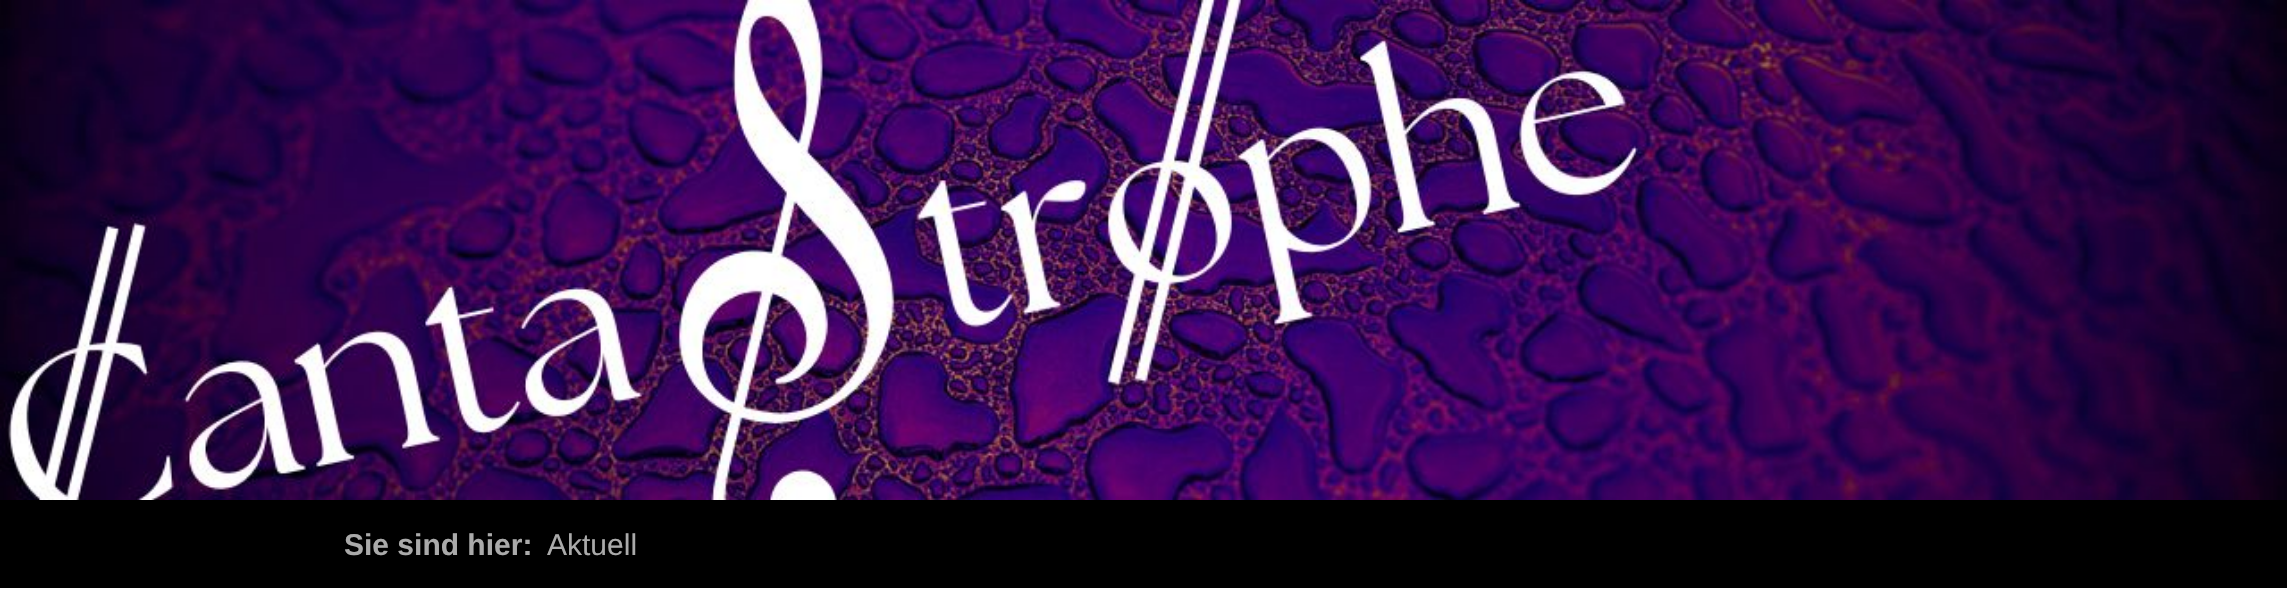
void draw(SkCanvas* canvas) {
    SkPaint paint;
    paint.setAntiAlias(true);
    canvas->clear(0xFFFFFFFF);
    canvas->drawImageRect(SkImages::DeferredFromEncodedData(SkData::MakeFromFileName("img1.png")), SkRect::MakeXYWH(0, 0, 2287, 500), SkSamplingOptions());
    paint.setColor(0xFF000000);
    canvas->drawRect(SkRect::MakeXYWH(0, 500, 2287, 88), paint);
    SkFont font1(fontMgr->matchFamilyStyle("Liberation Sans", SkFontStyle::Bold()), 30);
    font1.setSubpixel(true);
    paint.setColor(0xFFAAAAAA);
    canvas->drawString("Sie sind hier:", 344, 555, font1, paint);
    SkFont font2(fontMgr->matchFamilyStyle("Liberation Sans", SkFontStyle::Normal()), 30);
    font2.setSubpixel(true);
    canvas->drawString("Aktuell", 547, 555, font2, paint);
}
